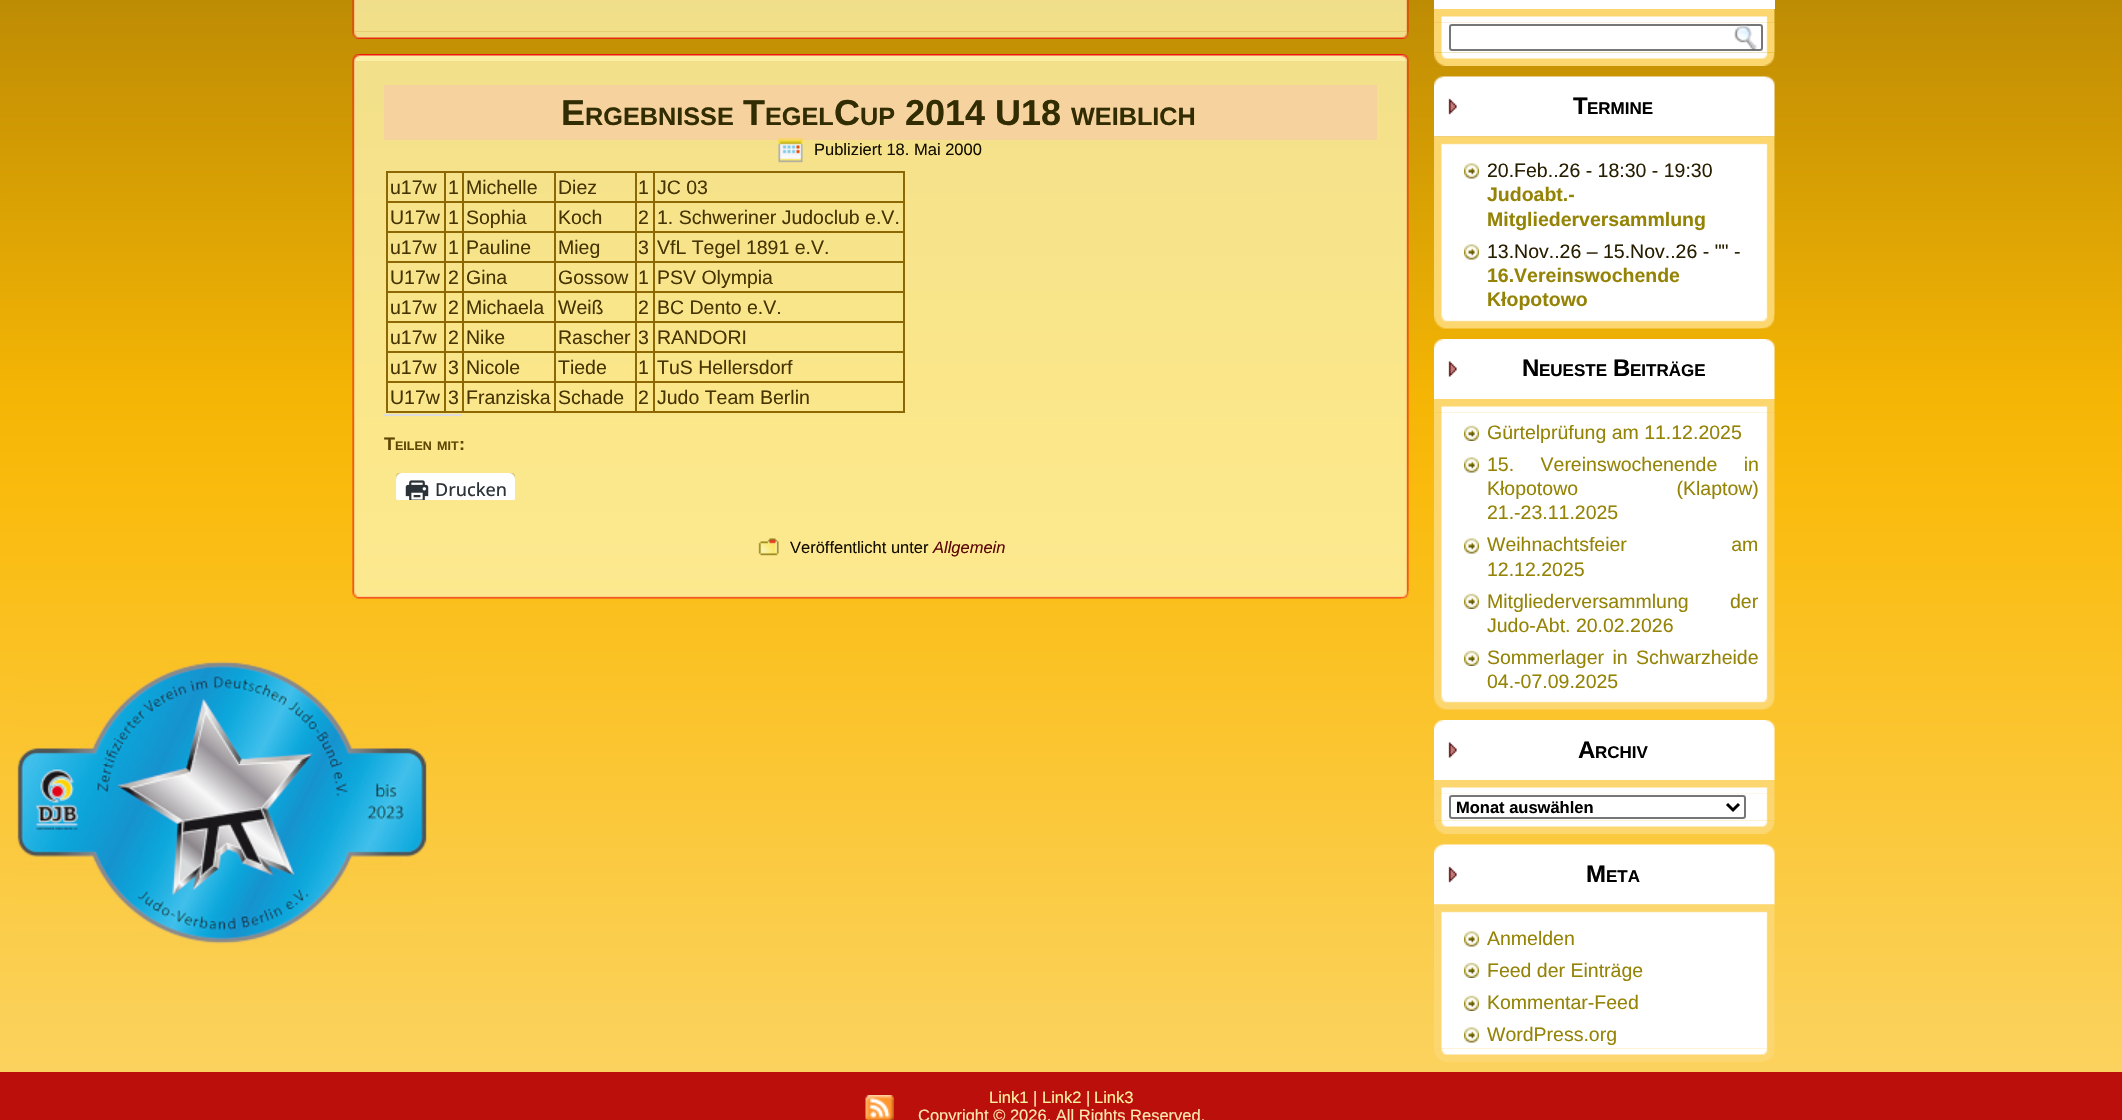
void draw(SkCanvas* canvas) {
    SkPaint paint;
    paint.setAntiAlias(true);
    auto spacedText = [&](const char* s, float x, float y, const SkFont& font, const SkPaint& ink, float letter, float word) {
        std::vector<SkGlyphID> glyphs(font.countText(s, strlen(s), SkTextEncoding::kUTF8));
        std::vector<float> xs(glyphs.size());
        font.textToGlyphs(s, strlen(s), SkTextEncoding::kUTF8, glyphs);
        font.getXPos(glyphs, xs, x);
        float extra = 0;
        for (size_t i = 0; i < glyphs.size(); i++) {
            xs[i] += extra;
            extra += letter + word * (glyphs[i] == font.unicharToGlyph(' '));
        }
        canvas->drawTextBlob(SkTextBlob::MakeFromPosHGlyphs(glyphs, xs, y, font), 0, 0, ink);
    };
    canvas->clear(0xFFFFFFFF);
    canvas->drawImageRect(SkImages::DeferredFromEncodedData(SkData::MakeFromFileName("img1.png")), SkRect::MakeXYWH(0, 0, 2122, 1072), SkSamplingOptions());
    canvas->drawImageRect(SkImages::DeferredFromEncodedData(SkData::MakeFromFileName("img2.png")), SkRect::MakeXYWH(17, 661, 410, 283), SkSamplingOptions());
    canvas->drawImageRect(SkImages::DeferredFromEncodedData(SkData::MakeFromFileName("img5.png")), SkRect::MakeXYWH(352, 31, 1049, 8), SkSamplingOptions());
    canvas->drawImageRect(SkImages::DeferredFromEncodedData(SkData::MakeFromFileName("img3.png")), SkRect::MakeXYWH(352, 0, 1049, 32), SkSamplingOptions());
    canvas->drawImageRect(SkImages::DeferredFromEncodedData(SkData::MakeFromFileName("img4.png")), SkRect::MakeXYWH(1401, 0, 8, 32), SkSamplingOptions());
    canvas->drawImageRect(SkImages::DeferredFromEncodedData(SkData::MakeFromFileName("img6.png")), SkRect::MakeXYWH(1401, 31, 8, 8), SkSamplingOptions());
    canvas->drawImageRect(SkImages::DeferredFromEncodedData(SkData::MakeFromFileName("img7.png")), SkRect::MakeXYWH(352, 54, 1049, 545), SkSamplingOptions());
    canvas->drawImageRect(SkImages::DeferredFromEncodedData(SkData::MakeFromFileName("img8.png")), SkRect::MakeXYWH(352, 54, 1049, 8), SkSamplingOptions());
    canvas->drawImageRect(SkImages::DeferredFromEncodedData(SkData::MakeFromFileName("img12.png")), SkRect::MakeXYWH(1401, 61, 8, 530), SkSamplingOptions());
    canvas->drawImageRect(SkImages::DeferredFromEncodedData(SkData::MakeFromFileName("img9.png")), SkRect::MakeXYWH(1401, 54, 8, 545), SkSamplingOptions());
    canvas->drawImageRect(SkImages::DeferredFromEncodedData(SkData::MakeFromFileName("img10.png")), SkRect::MakeXYWH(1401, 54, 8, 8), SkSamplingOptions());
    canvas->drawImageRect(SkImages::DeferredFromEncodedData(SkData::MakeFromFileName("img11.png")), SkRect::MakeXYWH(352, 61, 1049, 530), SkSamplingOptions());
    canvas->drawImageRect(SkImages::DeferredFromEncodedData(SkData::MakeFromFileName("img13.png")), SkRect::MakeXYWH(778, 137, 25, 26), SkSamplingOptions());
    paint.setColor(0x66FABEBC);
    canvas->drawRect(SkRect::MakeXYWH(384, 85, 993, 55), paint);
    SkFont font1(fontMgr->matchFamilyStyle("Liberation Sans", SkFontStyle::Bold()), 36);
    font1.setSubpixel(true);
    paint.setColor(0xFF312C02);
    canvas->drawString("E", 561, 125, font1, paint);
    SkFont font2(fontMgr->matchFamilyStyle("Liberation Sans", SkFontStyle::Bold()), 25.25f);
    font2.setSubpixel(true);
    canvas->drawString("RGEBNISSE", 585, 125, font2, paint);
    canvas->drawString("T", 743, 125, font1, paint);
    canvas->drawString("EGEL", 765, 125, font2, paint);
    canvas->drawString("C", 834, 125, font1, paint);
    canvas->drawString("UP", 860, 125, font2, paint);
    canvas->drawString("2014 U18", 905, 125, font1, paint);
    canvas->drawString("WEIBLICH", 1071, 125, font2, paint);
    SkFont font3(fontMgr->matchFamilyStyle("Liberation Sans", SkFontStyle::Normal()), 16.5f);
    font3.setSubpixel(true);
    paint.setColor(0xFF140F00);
    canvas->drawString("Publiziert 18. Mai 2000", 814, 155, font3, paint);
    paint.setColor(0xFF8C6703);
    canvas->drawRect(SkRect::MakeXYWH(653, 171, 252, 2), paint);
    canvas->drawRect(SkRect::MakeXYWH(653, 201, 252, 2), paint);
    canvas->drawRect(SkRect::MakeXYWH(653, 231, 252, 2), paint);
    canvas->drawRect(SkRect::MakeXYWH(653, 261, 252, 2), paint);
    canvas->drawRect(SkRect::MakeXYWH(653, 291, 252, 2), paint);
    canvas->drawRect(SkRect::MakeXYWH(653, 321, 252, 2), paint);
    canvas->drawRect(SkRect::MakeXYWH(653, 351, 252, 2), paint);
    canvas->drawRect(SkRect::MakeXYWH(653, 381, 252, 2), paint);
    canvas->drawRect(SkRect::MakeXYWH(903, 381, 2, 32), paint);
    canvas->drawRect(SkRect::MakeXYWH(653, 411, 252, 2), paint);
    canvas->drawRect(SkRect::MakeXYWH(653, 381, 2, 32), paint);
    canvas->drawRect(SkRect::MakeXYWH(635, 381, 19, 2), paint);
    canvas->drawRect(SkRect::MakeXYWH(653, 351, 2, 32), paint);
    canvas->drawRect(SkRect::MakeXYWH(635, 351, 19, 2), paint);
    canvas->drawRect(SkRect::MakeXYWH(653, 321, 2, 32), paint);
    canvas->drawRect(SkRect::MakeXYWH(635, 321, 19, 2), paint);
    canvas->drawRect(SkRect::MakeXYWH(653, 291, 2, 32), paint);
    canvas->drawRect(SkRect::MakeXYWH(635, 291, 19, 2), paint);
    canvas->drawRect(SkRect::MakeXYWH(653, 261, 2, 32), paint);
    canvas->drawRect(SkRect::MakeXYWH(635, 261, 19, 2), paint);
    canvas->drawRect(SkRect::MakeXYWH(653, 231, 2, 32), paint);
    canvas->drawRect(SkRect::MakeXYWH(635, 231, 19, 2), paint);
    canvas->drawRect(SkRect::MakeXYWH(653, 201, 2, 32), paint);
    canvas->drawRect(SkRect::MakeXYWH(635, 201, 19, 2), paint);
    canvas->drawRect(SkRect::MakeXYWH(653, 171, 2, 32), paint);
    canvas->drawRect(SkRect::MakeXYWH(635, 171, 19, 2), paint);
    canvas->drawRect(SkRect::MakeXYWH(635, 411, 19, 2), paint);
    canvas->drawRect(SkRect::MakeXYWH(635, 381, 2, 32), paint);
    canvas->drawRect(SkRect::MakeXYWH(554, 381, 82, 2), paint);
    canvas->drawRect(SkRect::MakeXYWH(635, 351, 2, 32), paint);
    canvas->drawRect(SkRect::MakeXYWH(554, 351, 82, 2), paint);
    canvas->drawRect(SkRect::MakeXYWH(635, 321, 2, 32), paint);
    canvas->drawRect(SkRect::MakeXYWH(554, 321, 82, 2), paint);
    canvas->drawRect(SkRect::MakeXYWH(635, 291, 2, 32), paint);
    canvas->drawRect(SkRect::MakeXYWH(554, 291, 82, 2), paint);
    canvas->drawRect(SkRect::MakeXYWH(635, 261, 2, 32), paint);
    canvas->drawRect(SkRect::MakeXYWH(554, 261, 82, 2), paint);
    canvas->drawRect(SkRect::MakeXYWH(635, 231, 2, 32), paint);
    canvas->drawRect(SkRect::MakeXYWH(554, 231, 82, 2), paint);
    canvas->drawRect(SkRect::MakeXYWH(635, 201, 2, 32), paint);
    canvas->drawRect(SkRect::MakeXYWH(554, 201, 82, 2), paint);
    canvas->drawRect(SkRect::MakeXYWH(635, 171, 2, 32), paint);
    canvas->drawRect(SkRect::MakeXYWH(554, 171, 82, 2), paint);
    canvas->drawRect(SkRect::MakeXYWH(554, 411, 82, 2), paint);
    canvas->drawRect(SkRect::MakeXYWH(554, 381, 2, 32), paint);
    canvas->drawRect(SkRect::MakeXYWH(462, 381, 93, 2), paint);
    canvas->drawRect(SkRect::MakeXYWH(554, 351, 2, 32), paint);
    canvas->drawRect(SkRect::MakeXYWH(462, 351, 93, 2), paint);
    canvas->drawRect(SkRect::MakeXYWH(554, 321, 2, 32), paint);
    canvas->drawRect(SkRect::MakeXYWH(462, 321, 93, 2), paint);
    canvas->drawRect(SkRect::MakeXYWH(554, 291, 2, 32), paint);
    canvas->drawRect(SkRect::MakeXYWH(462, 291, 93, 2), paint);
    canvas->drawRect(SkRect::MakeXYWH(554, 261, 2, 32), paint);
    canvas->drawRect(SkRect::MakeXYWH(462, 261, 93, 2), paint);
    canvas->drawRect(SkRect::MakeXYWH(554, 231, 2, 32), paint);
    canvas->drawRect(SkRect::MakeXYWH(462, 231, 93, 2), paint);
    canvas->drawRect(SkRect::MakeXYWH(554, 201, 2, 32), paint);
    canvas->drawRect(SkRect::MakeXYWH(462, 201, 93, 2), paint);
    canvas->drawRect(SkRect::MakeXYWH(554, 171, 2, 32), paint);
    canvas->drawRect(SkRect::MakeXYWH(462, 171, 93, 2), paint);
    canvas->drawRect(SkRect::MakeXYWH(462, 411, 93, 2), paint);
    canvas->drawRect(SkRect::MakeXYWH(462, 381, 2, 32), paint);
    canvas->drawRect(SkRect::MakeXYWH(444, 381, 20, 2), paint);
    canvas->drawRect(SkRect::MakeXYWH(462, 351, 2, 32), paint);
    canvas->drawRect(SkRect::MakeXYWH(444, 351, 20, 2), paint);
    canvas->drawRect(SkRect::MakeXYWH(462, 321, 2, 32), paint);
    canvas->drawRect(SkRect::MakeXYWH(444, 321, 20, 2), paint);
    canvas->drawRect(SkRect::MakeXYWH(462, 291, 2, 32), paint);
    canvas->drawRect(SkRect::MakeXYWH(444, 291, 20, 2), paint);
    canvas->drawRect(SkRect::MakeXYWH(462, 261, 2, 32), paint);
    canvas->drawRect(SkRect::MakeXYWH(444, 261, 20, 2), paint);
    canvas->drawRect(SkRect::MakeXYWH(462, 231, 2, 32), paint);
    canvas->drawRect(SkRect::MakeXYWH(444, 231, 20, 2), paint);
    canvas->drawRect(SkRect::MakeXYWH(462, 201, 2, 32), paint);
    canvas->drawRect(SkRect::MakeXYWH(444, 201, 20, 2), paint);
    canvas->drawRect(SkRect::MakeXYWH(462, 171, 2, 32), paint);
    canvas->drawRect(SkRect::MakeXYWH(444, 171, 20, 2), paint);
    canvas->drawRect(SkRect::MakeXYWH(444, 411, 20, 2), paint);
    canvas->drawRect(SkRect::MakeXYWH(444, 381, 2, 32), paint);
    canvas->drawRect(SkRect::MakeXYWH(386, 381, 60, 2), paint);
    canvas->drawRect(SkRect::MakeXYWH(444, 351, 2, 32), paint);
    canvas->drawRect(SkRect::MakeXYWH(386, 351, 60, 2), paint);
    canvas->drawRect(SkRect::MakeXYWH(444, 321, 2, 32), paint);
    canvas->drawRect(SkRect::MakeXYWH(386, 321, 60, 2), paint);
    canvas->drawRect(SkRect::MakeXYWH(444, 291, 2, 32), paint);
    canvas->drawRect(SkRect::MakeXYWH(386, 291, 60, 2), paint);
    canvas->drawRect(SkRect::MakeXYWH(444, 261, 2, 32), paint);
    canvas->drawRect(SkRect::MakeXYWH(386, 261, 60, 2), paint);
    canvas->drawRect(SkRect::MakeXYWH(444, 231, 2, 32), paint);
    canvas->drawRect(SkRect::MakeXYWH(386, 231, 60, 2), paint);
    canvas->drawRect(SkRect::MakeXYWH(444, 201, 2, 32), paint);
    canvas->drawRect(SkRect::MakeXYWH(386, 201, 60, 2), paint);
    canvas->drawRect(SkRect::MakeXYWH(444, 171, 2, 32), paint);
    canvas->drawRect(SkRect::MakeXYWH(386, 171, 60, 2), paint);
    canvas->drawRect(SkRect::MakeXYWH(386, 411, 60, 2), paint);
    canvas->drawRect(SkRect::MakeXYWH(386, 381, 2, 32), paint);
    canvas->drawRect(SkRect::MakeXYWH(386, 351, 2, 32), paint);
    canvas->drawRect(SkRect::MakeXYWH(386, 321, 2, 32), paint);
    canvas->drawRect(SkRect::MakeXYWH(386, 291, 2, 32), paint);
    canvas->drawRect(SkRect::MakeXYWH(386, 261, 2, 32), paint);
    canvas->drawRect(SkRect::MakeXYWH(386, 231, 2, 32), paint);
    canvas->drawRect(SkRect::MakeXYWH(386, 201, 2, 32), paint);
    canvas->drawRect(SkRect::MakeXYWH(386, 171, 2, 32), paint);
    SkFont font4(fontMgr->matchFamilyStyle("Liberation Sans", SkFontStyle::Normal()), 19.5f);
    font4.setSubpixel(true);
    paint.setColor(0xFF463401);
    canvas->drawString("u17w", 390, 194, font4, paint);
    canvas->drawString("1", 448, 194, font4, paint);
    canvas->drawString("Michelle", 466, 194, font4, paint);
    canvas->drawString("Diez", 558, 194, font4, paint);
    canvas->drawString("1", 638, 194, font4, paint);
    paint.setColor(0xFF8C6703);
    canvas->drawRect(SkRect::MakeXYWH(903, 351, 2, 32), paint);
    canvas->drawRect(SkRect::MakeXYWH(903, 321, 2, 32), paint);
    canvas->drawRect(SkRect::MakeXYWH(903, 291, 2, 32), paint);
    canvas->drawRect(SkRect::MakeXYWH(903, 261, 2, 32), paint);
    canvas->drawRect(SkRect::MakeXYWH(903, 231, 2, 32), paint);
    canvas->drawRect(SkRect::MakeXYWH(903, 201, 2, 32), paint);
    canvas->drawRect(SkRect::MakeXYWH(903, 171, 2, 32), paint);
    paint.setColor(0xFF463401);
    canvas->drawString("JC 03", 657, 194, font4, paint);
    canvas->drawString("U17w", 390, 224, font4, paint);
    canvas->drawString("1", 448, 224, font4, paint);
    canvas->drawString("Sophia", 466, 224, font4, paint);
    canvas->drawString("Koch", 558, 224, font4, paint);
    canvas->drawString("2", 638, 224, font4, paint);
    canvas->drawString("1. Schweriner Judoclub e.V.", 657, 224, font4, paint);
    canvas->drawString("u17w", 390, 254, font4, paint);
    canvas->drawString("1", 448, 254, font4, paint);
    canvas->drawString("Pauline", 466, 254, font4, paint);
    canvas->drawString("Mieg", 558, 254, font4, paint);
    canvas->drawString("3", 638, 254, font4, paint);
    canvas->drawString("VfL Tegel 1891 e.V.", 657, 254, font4, paint);
    canvas->drawString("U17w", 390, 284, font4, paint);
    canvas->drawString("2", 448, 284, font4, paint);
    canvas->drawString("Gina", 466, 284, font4, paint);
    canvas->drawString("Gossow", 558, 284, font4, paint);
    canvas->drawString("1", 638, 284, font4, paint);
    canvas->drawString("PSV Olympia", 657, 284, font4, paint);
    canvas->drawString("u17w", 390, 314, font4, paint);
    canvas->drawString("2", 448, 314, font4, paint);
    canvas->drawString("Michaela", 466, 314, font4, paint);
    canvas->drawString("Weiß", 558, 314, font4, paint);
    canvas->drawString("2", 638, 314, font4, paint);
    canvas->drawString("BC Dento e.V.", 657, 314, font4, paint);
    canvas->drawString("u17w", 390, 344, font4, paint);
    canvas->drawString("2", 448, 344, font4, paint);
    canvas->drawString("Nike", 466, 344, font4, paint);
    canvas->drawString("Rascher", 558, 344, font4, paint);
    canvas->drawString("3", 638, 344, font4, paint);
    canvas->drawString("RANDORI", 657, 344, font4, paint);
    canvas->drawString("u17w", 390, 374, font4, paint);
    canvas->drawString("3", 448, 374, font4, paint);
    canvas->drawString("Nicole", 466, 374, font4, paint);
    canvas->drawString("Tiede", 558, 374, font4, paint);
    canvas->drawString("1", 638, 374, font4, paint);
    canvas->drawString("TuS Hellersdorf", 657, 374, font4, paint);
    canvas->drawString("U17w", 390, 404, font4, paint);
    canvas->drawString("3", 448, 404, font4, paint);
    canvas->drawString("Franziska", 466, 404, font4, paint);
    canvas->drawString("Schade", 558, 404, font4, paint);
    canvas->drawString("2", 638, 404, font4, paint);
    canvas->drawString("Judo Team Berlin", 657, 404, font4, paint);
    paint.setColor(0xFFDCDCDE);
    canvas->drawRect(SkRect::MakeXYWH(384, 414, 78, 2), paint);
    SkFont font5(fontMgr->matchFamilyStyle("Liberation Sans", SkFontStyle::Bold()), 18);
    font5.setSubpixel(true);
    paint.setColor(0xFF5F4602);
    canvas->drawString("T", 384, 450, font5, paint);
    SkFont font6(fontMgr->matchFamilyStyle("Liberation Sans", SkFontStyle::Bold()), 12.5f);
    font6.setSubpixel(true);
    canvas->drawString("EILEN", 395, 450, font6, paint);
    canvas->drawString("MIT", 437, 450, font6, paint);
    canvas->drawString(":", 459, 450, font5, paint);
    canvas->drawImageRect(SkImages::DeferredFromEncodedData(SkData::MakeFromFileName("img14.png")), SkRect::MakeXYWH(396, 478, 1, 1), SkSamplingOptions());
    canvas->save();
    canvas->clipRect(SkRect::MakeXYWH(396, 473, 119, 27));
    paint.setStyle(SkPaint::kStroke_Style);
    paint.setStrokeWidth(2);
    paint.setColor(0x1F000000);
    canvas->drawRoundRect(SkRect::MakeXYWH(396, 472, 119, 33), 7, 7, paint);
    canvas->restore();
    canvas->save();
    canvas->clipRect(SkRect::MakeXYWH(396, 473, 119, 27));
    paint.setStyle(SkPaint::kFill_Style);
    paint.setMaskFilter(SkMaskFilter::MakeBlur(kNormal_SkBlurStyle, 1.5f));
    canvas->drawRoundRect(SkRect::MakeXYWH(396, 474, 119, 32), 6, 6, paint);
    paint.setMaskFilter(nullptr);
    canvas->restore();
    canvas->save();
    canvas->clipRect(SkRect::MakeXYWH(396, 473, 119, 27));
    paint.setColor(0xFFFFFFFF);
    canvas->drawRoundRect(SkRect::MakeXYWH(396, 473, 119, 31), 6, 6, paint);
    canvas->restore();
    canvas->drawImageRect(SkImages::DeferredFromEncodedData(SkData::MakeFromFileName("img15.png")), SkRect::MakeXYWH(405, 480, 24, 20), SkSamplingOptions());
    SkFont font7(fontMgr->matchFamilyStyle("Open Sans", SkFontStyle(500, SkFontStyle::kNormal_Width, SkFontStyle::kUpright_Slant)), 18);
    font7.setSubpixel(true);
    paint.setColor(0xFF2C3338);
    canvas->drawString("Drucken", 435, 496, font7, paint);
    canvas->drawImageRect(SkImages::DeferredFromEncodedData(SkData::MakeFromFileName("img16.png")), SkRect::MakeXYWH(758, 538, 21, 18), SkSamplingOptions());
    paint.setColor(0xFF140F00);
    canvas->drawString("Veröffentlicht unter", 790, 553, font3, paint);
    SkFont font8(fontMgr->matchFamilyStyle("Liberation Sans", SkFontStyle::Italic()), 16.5f);
    font8.setSubpixel(true);
    paint.setColor(0xFF5B0706);
    canvas->drawString("Allgemein", 933, 553, font8, paint);
    paint.setColor(0xFFFFFFFF);
    canvas->drawRect(SkRect::MakeXYWH(1434, 0, 341, 9), paint);
    canvas->drawImageRect(SkImages::DeferredFromEncodedData(SkData::MakeFromFileName("img17.png")), SkRect::MakeXYWH(1434, 9, 327, 57), SkSamplingOptions());
    canvas->drawImageRect(SkImages::DeferredFromEncodedData(SkData::MakeFromFileName("img18.png")), SkRect::MakeXYWH(1434, 22, 327, 1), SkSamplingOptions());
    canvas->drawImageRect(SkImages::DeferredFromEncodedData(SkData::MakeFromFileName("img22.png")), SkRect::MakeXYWH(1761, 22, 14, 31), SkSamplingOptions());
    canvas->drawImageRect(SkImages::DeferredFromEncodedData(SkData::MakeFromFileName("img19.png")), SkRect::MakeXYWH(1761, 9, 14, 57), SkSamplingOptions());
    canvas->drawImageRect(SkImages::DeferredFromEncodedData(SkData::MakeFromFileName("img20.png")), SkRect::MakeXYWH(1761, 9, 14, 14), SkSamplingOptions());
    canvas->drawImageRect(SkImages::DeferredFromEncodedData(SkData::MakeFromFileName("img21.png")), SkRect::MakeXYWH(1434, 22, 327, 31), SkSamplingOptions());
    paint.setStyle(SkPaint::kStroke_Style);
    paint.setColor(0xFF767676);
    canvas->drawRoundRect(SkRect::MakeXYWH(1450, 25, 312, 25), 2, 2, paint);
    canvas->drawImageRect(SkImages::DeferredFromEncodedData(SkData::MakeFromFileName("img23.png")), SkRect::MakeXYWH(1734, 25, 23, 25), SkSamplingOptions());
    canvas->drawImageRect(SkImages::DeferredFromEncodedData(SkData::MakeFromFileName("img24.png")), SkRect::MakeXYWH(1434, 76, 318, 60), SkSamplingOptions());
    canvas->drawImageRect(SkImages::DeferredFromEncodedData(SkData::MakeFromFileName("img25.png")), SkRect::MakeXYWH(1752, 76, 23, 61), SkSamplingOptions());
    SkFont font9(fontMgr->matchFamilyStyle("Liberation Sans", SkFontStyle::Bold()), 24);
    font9.setSubpixel(true);
    paint.setStyle(SkPaint::kFill_Style);
    paint.setColor(0xFF000000);
    canvas->drawString("T", 1573, 114, font9, paint);
    SkFont font10(fontMgr->matchFamilyStyle("Liberation Sans", SkFontStyle::Bold()), 17);
    font10.setSubpixel(true);
    canvas->drawString("ERMINE", 1587, 114, font10, paint);
    canvas->drawImageRect(SkImages::DeferredFromEncodedData(SkData::MakeFromFileName("img26.png")), SkRect::MakeXYWH(1434, 137, 327, 192), SkSamplingOptions());
    paint.setColor(0xFFF1D178);
    canvas->drawRect(SkRect::MakeXYWH(1434, 136, 327, 1), paint);
    canvas->drawImageRect(SkImages::DeferredFromEncodedData(SkData::MakeFromFileName("img30.png")), SkRect::MakeXYWH(1761, 150, 14, 165), SkSamplingOptions());
    canvas->drawImageRect(SkImages::DeferredFromEncodedData(SkData::MakeFromFileName("img27.png")), SkRect::MakeXYWH(1761, 136, 14, 193), SkSamplingOptions());
    canvas->drawImageRect(SkImages::DeferredFromEncodedData(SkData::MakeFromFileName("img28.png")), SkRect::MakeXYWH(1761, 136, 14, 14), SkSamplingOptions());
    canvas->drawImageRect(SkImages::DeferredFromEncodedData(SkData::MakeFromFileName("img29.png")), SkRect::MakeXYWH(1434, 150, 327, 165), SkSamplingOptions());
    canvas->drawImageRect(SkImages::DeferredFromEncodedData(SkData::MakeFromFileName("img31.png")), SkRect::MakeXYWH(1464, 163, 15, 16), SkSamplingOptions());
    paint.setColor(0xFF281E01);
    canvas->drawString("20.Feb..26 - 18:30 - 19:30", 1487, 177, font4, paint);
    SkFont font11(fontMgr->matchFamilyStyle("Liberation Sans", SkFontStyle::Bold()), 19.5f);
    font11.setSubpixel(true);
    paint.setColor(0xFF948305);
    canvas->drawString("Judoabt.-", 1487, 201, font11, paint);
    canvas->drawString("Mitgliederversammlung", 1487, 226, font11, paint);
    canvas->drawImageRect(SkImages::DeferredFromEncodedData(SkData::MakeFromFileName("img31.png")), SkRect::MakeXYWH(1464, 244, 15, 16), SkSamplingOptions());
    paint.setColor(0xFF281E01);
    canvas->drawString("13.Nov..26 – 15.Nov..26 - \"\" -", 1487, 258, font4, paint);
    paint.setColor(0xFF948305);
    canvas->drawString("16.Vereinswochende", 1487, 282, font11, paint);
    canvas->drawString("Kłopotowo", 1487, 306, font11, paint);
    canvas->drawImageRect(SkImages::DeferredFromEncodedData(SkData::MakeFromFileName("img32.png")), SkRect::MakeXYWH(1434, 339, 318, 60), SkSamplingOptions());
    canvas->drawImageRect(SkImages::DeferredFromEncodedData(SkData::MakeFromFileName("img33.png")), SkRect::MakeXYWH(1752, 339, 23, 60), SkSamplingOptions());
    paint.setColor(0xFF000000);
    canvas->drawString("N", 1522, 376, font9, paint);
    canvas->drawString("EUESTE", 1539, 376, font10, paint);
    canvas->drawString("B", 1613, 376, font9, paint);
    canvas->drawString("EITRÄGE", 1630, 376, font10, paint);
    canvas->drawImageRect(SkImages::DeferredFromEncodedData(SkData::MakeFromFileName("img34.png")), SkRect::MakeXYWH(1434, 399, 327, 311), SkSamplingOptions());
    canvas->drawImageRect(SkImages::DeferredFromEncodedData(SkData::MakeFromFileName("img35.png")), SkRect::MakeXYWH(1434, 412, 327, 1), SkSamplingOptions());
    canvas->drawImageRect(SkImages::DeferredFromEncodedData(SkData::MakeFromFileName("img39.png")), SkRect::MakeXYWH(1761, 412, 14, 284), SkSamplingOptions());
    canvas->drawImageRect(SkImages::DeferredFromEncodedData(SkData::MakeFromFileName("img36.png")), SkRect::MakeXYWH(1761, 399, 14, 311), SkSamplingOptions());
    canvas->drawImageRect(SkImages::DeferredFromEncodedData(SkData::MakeFromFileName("img37.png")), SkRect::MakeXYWH(1761, 399, 14, 14), SkSamplingOptions());
    canvas->drawImageRect(SkImages::DeferredFromEncodedData(SkData::MakeFromFileName("img38.png")), SkRect::MakeXYWH(1434, 412, 327, 284), SkSamplingOptions());
    canvas->drawImageRect(SkImages::DeferredFromEncodedData(SkData::MakeFromFileName("img40.png")), SkRect::MakeXYWH(1464, 425, 15, 16), SkSamplingOptions());
    paint.setColor(0xFF948305);
    canvas->drawString("Gürtelprüfung am 11.12.2025", 1487, 439, font4, paint);
    canvas->drawImageRect(SkImages::DeferredFromEncodedData(SkData::MakeFromFileName("img31.png")), SkRect::MakeXYWH(1464, 457, 15, 16), SkSamplingOptions());
    spacedText("15. Vereinswochenende in", 1487, 471, font4, paint, 0, 21);
    spacedText("Kłopotowo (Klaptow)", 1487, 495, font4, paint, 0, 93);
    canvas->drawString("21.-23.11.2025", 1487, 519, font4, paint);
    canvas->drawImageRect(SkImages::DeferredFromEncodedData(SkData::MakeFromFileName("img31.png")), SkRect::MakeXYWH(1464, 538, 15, 16), SkSamplingOptions());
    spacedText("Weihnachtsfeier am", 1487, 551, font4, paint, 0, 99);
    canvas->drawString("12.12.2025", 1487, 576, font4, paint);
    canvas->drawImageRect(SkImages::DeferredFromEncodedData(SkData::MakeFromFileName("img40.png")), SkRect::MakeXYWH(1464, 593, 15, 16), SkSamplingOptions());
    spacedText("Mitgliederversammlung der", 1487, 608, font4, paint, 0, 36);
    canvas->drawString("Judo-Abt. 20.02.2026", 1487, 632, font4, paint);
    canvas->drawImageRect(SkImages::DeferredFromEncodedData(SkData::MakeFromFileName("img40.png")), SkRect::MakeXYWH(1464, 650, 15, 16), SkSamplingOptions());
    spacedText("Sommerlager in Schwarzheide", 1487, 664, font4, paint, 0, 3);
    canvas->drawString("04.-07.09.2025", 1487, 688, font4, paint);
    canvas->drawImageRect(SkImages::DeferredFromEncodedData(SkData::MakeFromFileName("img41.png")), SkRect::MakeXYWH(1434, 720, 318, 60), SkSamplingOptions());
    canvas->drawImageRect(SkImages::DeferredFromEncodedData(SkData::MakeFromFileName("img42.png")), SkRect::MakeXYWH(1752, 720, 23, 60), SkSamplingOptions());
    paint.setColor(0xFF000000);
    canvas->drawString("A", 1578, 758, font9, paint);
    canvas->drawString("RCHIV", 1595, 758, font10, paint);
    canvas->drawImageRect(SkImages::DeferredFromEncodedData(SkData::MakeFromFileName("img43.png")), SkRect::MakeXYWH(1434, 780, 327, 54), SkSamplingOptions());
    canvas->drawImageRect(SkImages::DeferredFromEncodedData(SkData::MakeFromFileName("img44.png")), SkRect::MakeXYWH(1434, 793, 327, 1), SkSamplingOptions());
    canvas->drawImageRect(SkImages::DeferredFromEncodedData(SkData::MakeFromFileName("img48.png")), SkRect::MakeXYWH(1761, 793, 14, 28), SkSamplingOptions());
    canvas->drawImageRect(SkImages::DeferredFromEncodedData(SkData::MakeFromFileName("img45.png")), SkRect::MakeXYWH(1761, 780, 14, 54), SkSamplingOptions());
    canvas->drawImageRect(SkImages::DeferredFromEncodedData(SkData::MakeFromFileName("img46.png")), SkRect::MakeXYWH(1761, 780, 14, 14), SkSamplingOptions());
    canvas->drawImageRect(SkImages::DeferredFromEncodedData(SkData::MakeFromFileName("img47.png")), SkRect::MakeXYWH(1434, 793, 327, 28), SkSamplingOptions());
    paint.setStyle(SkPaint::kStroke_Style);
    paint.setColor(0xFF767676);
    canvas->drawRoundRect(SkRect::MakeXYWH(1450, 796, 295, 22), 2, 2, paint);
    paint.setStrokeWidth(3);
    paint.setColor(0xFF000000);
    canvas->drawPath(SkPathBuilder().moveTo(1727, 804).lineTo(1733, 810).lineTo(1739, 804).detach(), paint);
    SkFont font12(fontMgr->matchFamilyStyle("Liberation Sans", SkFontStyle::Bold()), 16.5f);
    font12.setSubpixel(true);
    paint.setStyle(SkPaint::kFill_Style);
    canvas->drawString("Monat auswählen", 1456, 813, font12, paint);
    canvas->drawImageRect(SkImages::DeferredFromEncodedData(SkData::MakeFromFileName("img49.png")), SkRect::MakeXYWH(1434, 844, 318, 60), SkSamplingOptions());
    canvas->drawImageRect(SkImages::DeferredFromEncodedData(SkData::MakeFromFileName("img50.png")), SkRect::MakeXYWH(1752, 844, 23, 61), SkSamplingOptions());
    canvas->drawString("M", 1586, 882, font9, paint);
    canvas->drawString("ETA", 1606, 882, font10, paint);
    canvas->drawImageRect(SkImages::DeferredFromEncodedData(SkData::MakeFromFileName("img51.png")), SkRect::MakeXYWH(1434, 905, 327, 157), SkSamplingOptions());
    paint.setColor(0xFFFCDF8B);
    canvas->drawRect(SkRect::MakeXYWH(1434, 904, 327, 1), paint);
    canvas->drawImageRect(SkImages::DeferredFromEncodedData(SkData::MakeFromFileName("img55.png")), SkRect::MakeXYWH(1761, 918, 14, 131), SkSamplingOptions());
    canvas->drawImageRect(SkImages::DeferredFromEncodedData(SkData::MakeFromFileName("img52.png")), SkRect::MakeXYWH(1761, 904, 14, 158), SkSamplingOptions());
    canvas->drawImageRect(SkImages::DeferredFromEncodedData(SkData::MakeFromFileName("img53.png")), SkRect::MakeXYWH(1761, 904, 14, 14), SkSamplingOptions());
    canvas->drawImageRect(SkImages::DeferredFromEncodedData(SkData::MakeFromFileName("img54.png")), SkRect::MakeXYWH(1434, 918, 327, 131), SkSamplingOptions());
    canvas->drawImageRect(SkImages::DeferredFromEncodedData(SkData::MakeFromFileName("img31.png")), SkRect::MakeXYWH(1464, 931, 15, 16), SkSamplingOptions());
    paint.setColor(0xFF948305);
    canvas->drawString("Anmelden", 1487, 945, font4, paint);
    canvas->drawImageRect(SkImages::DeferredFromEncodedData(SkData::MakeFromFileName("img40.png")), SkRect::MakeXYWH(1464, 962, 15, 16), SkSamplingOptions());
    canvas->drawString("Feed der Einträge", 1487, 977, font4, paint);
    canvas->drawImageRect(SkImages::DeferredFromEncodedData(SkData::MakeFromFileName("img40.png")), SkRect::MakeXYWH(1464, 995, 15, 16), SkSamplingOptions());
    canvas->drawString("Kommentar-Feed", 1487, 1009, font4, paint);
    canvas->drawImageRect(SkImages::DeferredFromEncodedData(SkData::MakeFromFileName("img31.png")), SkRect::MakeXYWH(1464, 1027, 15, 16), SkSamplingOptions());
    canvas->drawString("WordPress.org", 1487, 1041, font4, paint);
    paint.setColor(0xFFBB0F0C);
    canvas->drawRect(SkRect::MakeXYWH(0, 1072, 2122, 48), paint);
    canvas->drawImageRect(SkImages::DeferredFromEncodedData(SkData::MakeFromFileName("img56.png")), SkRect::MakeXYWH(865, 1095, 29, 25), SkSamplingOptions());
    paint.setColor(0xFFFCF1A1);
    canvas->drawString("Link1", 989, 1103, font3, paint);
    paint.setColor(0xFFFDE8AF);
    canvas->drawString("|", 1033, 1103, font3, paint);
    paint.setColor(0xFFFCF1A1);
    canvas->drawString("Link2", 1042, 1103, font3, paint);
    paint.setColor(0xFFFDE8AF);
    canvas->drawString("|", 1086, 1103, font3, paint);
    paint.setColor(0xFFFCF1A1);
    canvas->drawString("Link3", 1094, 1103, font3, paint);
    paint.setColor(0xFFFDE8AF);
    canvas->drawString("Copyright © 2026. All Rights Reserved.", 918, 1121, font3, paint);
}
